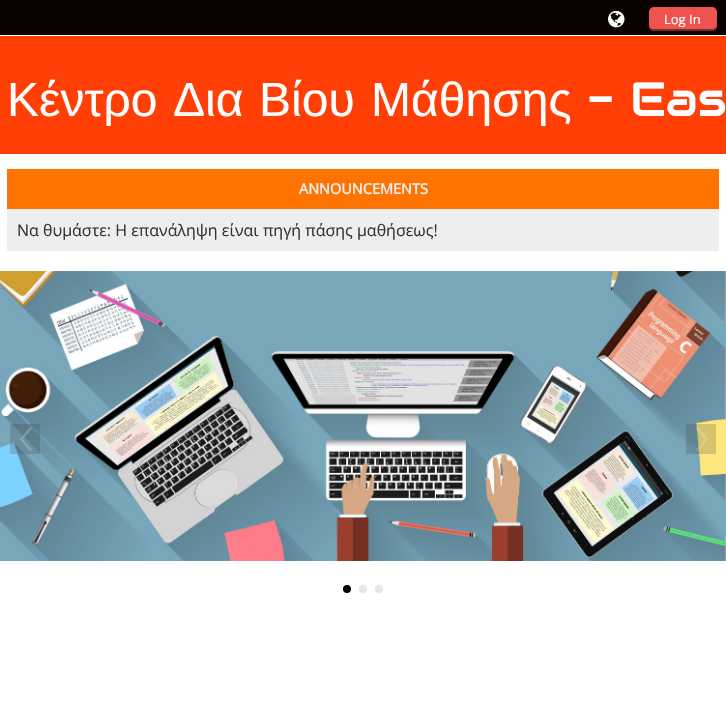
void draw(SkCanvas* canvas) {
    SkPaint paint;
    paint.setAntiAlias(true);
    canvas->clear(0xFFFFFFFF);
    paint.setColor(0xFFFF3F05);
    canvas->drawRect(SkRect::MakeXYWH(0, 36, 726, 118), paint);
    paint.setColor(0xFF0A0100);
    canvas->drawRect(SkRect::MakeXYWH(0, 0, 726, 35), paint);
    canvas->drawImageRect(SkImages::DeferredFromEncodedData(SkData::MakeFromFileName("img1.png")), SkRect::MakeXYWH(608, 10, 17, 18), SkSamplingOptions());
    paint.setColor(0xFFEF5350);
    canvas->drawRoundRect(SkRect::MakeXYWH(649, 7, 68, 24), 5, 5, paint);
    paint.setColor(0x80000000);
    canvas->drawPath(SkPathBuilder().moveTo(649, 24).cubicTo(649, 33, 656, 31, 664, 31).lineTo(702, 31).cubicTo(710, 31, 717, 33, 717, 24).cubicTo(717, 27, 715, 29, 712, 29).lineTo(654, 29).cubicTo(651, 29, 649, 27, 649, 24).close().detach(), paint);
    SkFont font1(fontMgr->matchFamilyStyle("Open Sans", SkFontStyle::Normal()), 13);
    font1.setSubpixel(true);
    paint.setColor(0xFFFFFFFF);
    canvas->drawString("Log In", 664, 24, font1, paint);
    SkFont font2(fontMgr->matchFamilyStyle("Liberation Sans", SkFontStyle::Normal()), 48);
    font2.setSubpixel(true);
    canvas->drawString("Κέντρο", 7, 116, font2, paint);
    canvas->drawString("Δια", 173, 116, font2, paint);
    canvas->drawString("Βίου", 259, 116, font2, paint);
    canvas->drawString("Μάθησης", 371, 116, font2, paint);
    SkFont font3(fontMgr->matchFamilyStyle("Audiowide", SkFontStyle::Normal()), 48);
    font3.setSubpixel(true);
    canvas->drawString("- Eas", 587, 116, font3, paint);
    paint.setColor(0xFFEEEEEE);
    canvas->drawRect(SkRect::MakeXYWH(7, 209, 712, 42), paint);
    paint.setColor(0xFFFF7300);
    canvas->drawRect(SkRect::MakeXYWH(7, 169, 712, 40), paint);
    SkFont font4(fontMgr->matchFamilyStyle("Open Sans", SkFontStyle::Bold()), 14.5f);
    font4.setSubpixel(true);
    paint.setColor(0xFFEEEEEE);
    canvas->drawString("ANNOUNCEMENTS", 299, 194, font4, paint);
    SkFont font5(fontMgr->matchFamilyStyle("Open Sans", SkFontStyle::Normal()), 16);
    font5.setSubpixel(true);
    paint.setColor(0xFF333333);
    canvas->drawString("Να θυμάστε: Η επανάληψη είναι πηγή πάσης μαθήσεως!", 17, 236, font5, paint);
    canvas->drawImageRect(SkImages::DeferredFromEncodedData(SkData::MakeFromFileName("img2.png")), SkRect::MakeXYWH(0, 271, 726, 290), SkSamplingOptions());
    paint.setColor(0x33333333);
    canvas->drawRect(SkRect::MakeXYWH(10, 424, 30, 30), paint);
    canvas->drawImageRect(SkImages::DeferredFromEncodedData(SkData::MakeFromFileName("img3.png")), SkRect::MakeXYWH(20, 427, 12, 25), SkSamplingOptions());
    canvas->drawRect(SkRect::MakeXYWH(686, 424, 30, 30), paint);
    canvas->drawImageRect(SkImages::DeferredFromEncodedData(SkData::MakeFromFileName("img4.png")), SkRect::MakeXYWH(696, 427, 12, 25), SkSamplingOptions());
    paint.setColor(0xFF000000);
    canvas->drawCircle(347, 589, 4, paint);
    paint.setColor(0xFFE6E6E6);
    canvas->drawCircle(363, 589, 4, paint);
    canvas->drawCircle(379, 589, 4, paint);
}
